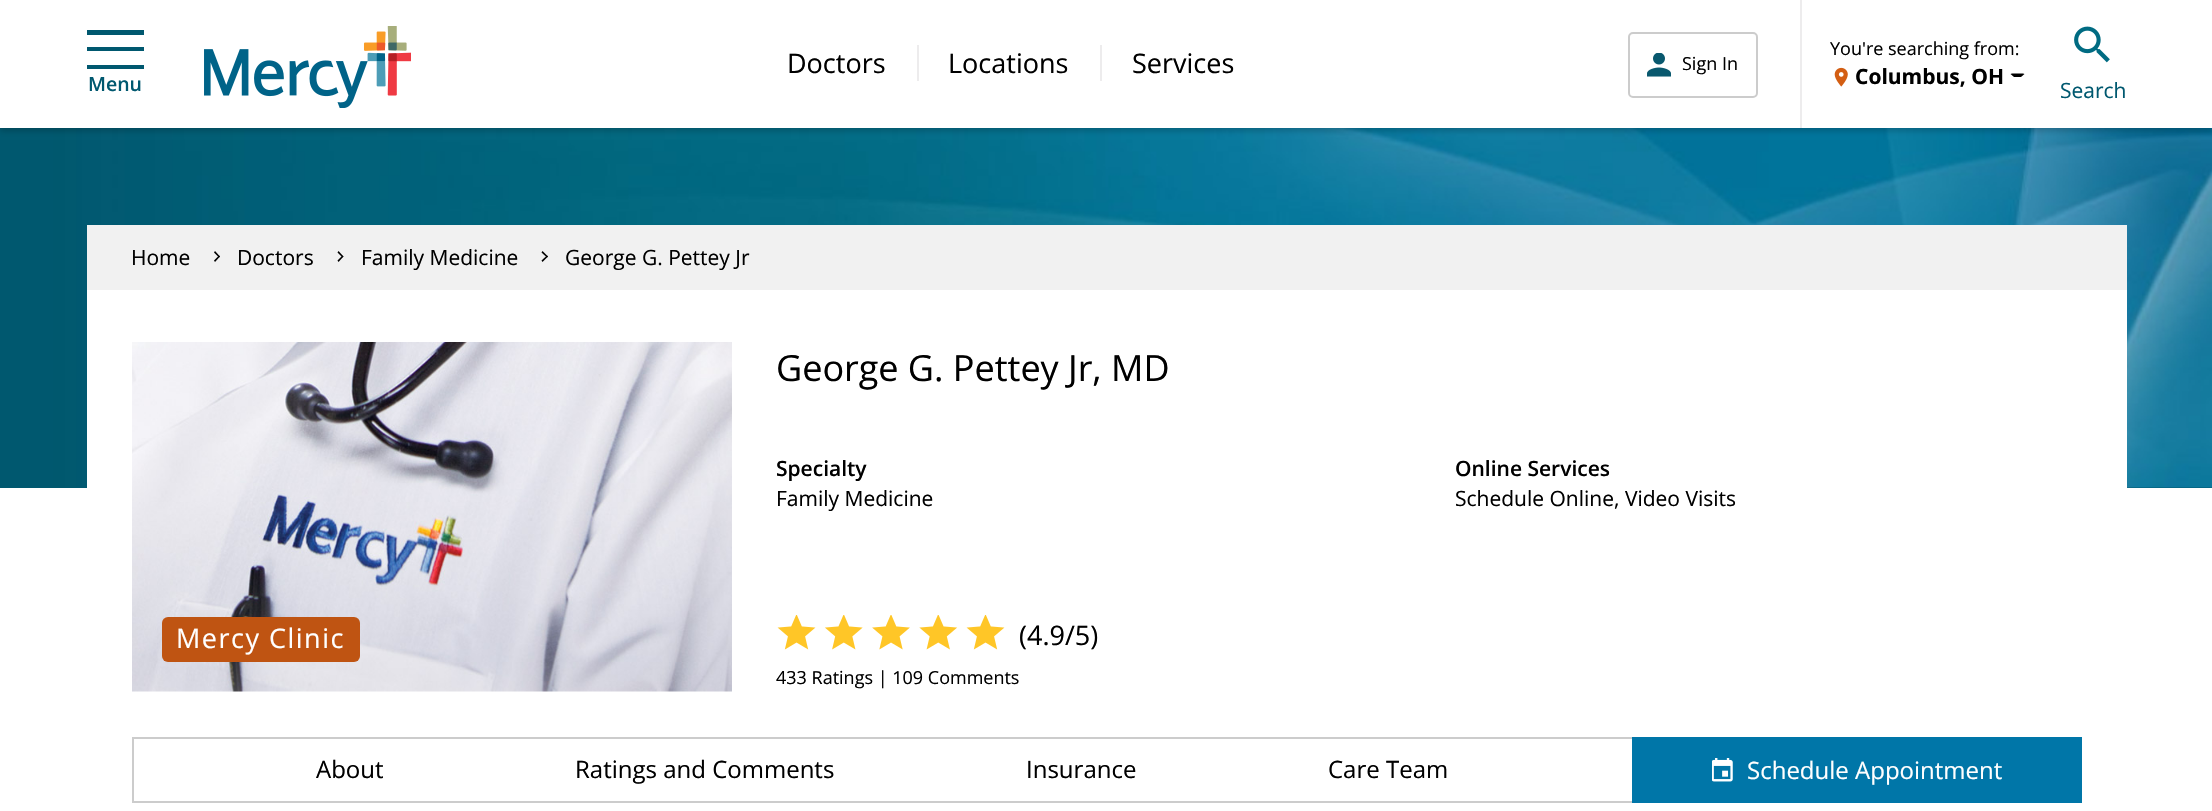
#include "include/core/SkBlurTypes.h"
#include "include/core/SkCanvas.h"
#include "include/core/SkData.h"
#include "include/core/SkFont.h"
#include "include/core/SkFontMgr.h"
#include "include/core/SkImage.h"
#include "include/core/SkMaskFilter.h"
#include "include/core/SkPaint.h"
#include "include/core/SkPathBuilder.h"
#include "include/core/SkTextBlob.h"
#include "include/effects/SkDashPathEffect.h"
#include "include/effects/SkGradientShader.h"
#include "include/utils/SkParsePath.h"

extern sk_sp<SkFontMgr> fontMgr;

static SkFont font(const char* family, int weight, float size, bool italic = false) {
    SkFontStyle style(weight, SkFontStyle::kNormal_Width,
        italic ? SkFontStyle::kItalic_Slant : SkFontStyle::kUpright_Slant);
    SkFont result(fontMgr->matchFamilyStyle(family, style), size);
    result.setSubpixel(true);
    return result;
}

static void drawLabel(SkCanvas* canvas, const char* s, float x, float y, const SkFont& font, SkColor color) {
    SkPaint ink(SkColor4f::FromColor(color));
    ink.setAntiAlias(true);
    canvas->drawString(s, x, y, font, ink);
}

static void drawTracked(SkCanvas* canvas, const char* s, float x, float y, const SkFont& font, const SkPaint& ink, float letter, float word) {
    std::vector<SkGlyphID> glyphs(font.countText(s, strlen(s), SkTextEncoding::kUTF8));
    std::vector<float> xs(glyphs.size());
    font.textToGlyphs(s, strlen(s), SkTextEncoding::kUTF8, glyphs);
    font.getXPos(glyphs, xs, x);
    float extra = 0;
    for (size_t i = 0; i < glyphs.size(); i++) {
        xs[i] += extra;
        extra += letter + word * (glyphs[i] == font.unicharToGlyph(' '));
    }
    canvas->drawTextBlob(SkTextBlob::MakeFromPosHGlyphs(glyphs, xs, y, font), 0, 0, ink);
}

static void fillRect(SkCanvas* canvas, float x, float y, float w, float h, SkColor color) {
    SkPaint ink(SkColor4f::FromColor(color));
    ink.setAntiAlias(true);
    canvas->drawRect(SkRect::MakeXYWH(x, y, w, h), ink);
}

static void fillRRect(SkCanvas* canvas, float x, float y, float w, float h, float radius, SkColor color) {
    SkPaint ink(SkColor4f::FromColor(color));
    ink.setAntiAlias(true);
    canvas->drawRoundRect(SkRect::MakeXYWH(x, y, w, h), radius, radius, ink);
}

static void drawPhoto(SkCanvas* canvas, const char* path, float x, float y, float w, float h) {
    auto image = SkImages::DeferredFromEncodedData(SkData::MakeFromFileName(path));
    canvas->drawImageRect(image, SkRect::MakeXYWH(x, y, w, h), SkSamplingOptions());
}

static SkPath parsePath(const char* data, bool evenOdd = false) {
    SkPath result = *SkParsePath::FromSVGString(data);
    if (evenOdd) result.setFillType(SkPathFillType::kEvenOdd);
    return result;
}

void draw(SkCanvas* canvas) {
    SkPaint paint;
    paint.setAntiAlias(true);
    canvas->clear(0xFFFFFFFF);
    fillRect(canvas, 0, 128, 2212, 360, 0xFF00586F);
    drawPhoto(canvas, "assets/img5.png", 52, 128, 2160, 360);
    paint.setColor(0x33030303);
    paint.setMaskFilter(SkMaskFilter::MakeBlur(kNormal_SkBlurStyle, 3));
    canvas->drawRect(SkRect::MakeXYWH(0, 3, 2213, 128), paint);
    paint.setMaskFilter(nullptr);
    fillRect(canvas, 0, 0, 2212, 128, 0xFFFFFFFF);
    drawPhoto(canvas, "assets/img1.png", 204, 26, 207, 82);
    SkFont font1 = font("Open Sans", 400, 27);
    drawLabel(canvas, "Doctors", 787, 73, font1, 0xFF000000);
    fillRect(canvas, 917, 45, 2, 36, 0xFFEDECED);
    drawLabel(canvas, "Locations", 948, 73, font1, 0xFF000000);
    fillRect(canvas, 1100, 45, 2, 36, 0xFFEDECED);
    drawLabel(canvas, "Services", 1132, 73, font1, 0xFF000000);
    paint.setStroke(true);
    paint.setStrokeWidth(2);
    paint.setColor(0xFFCCCCCC);
    canvas->drawRoundRect(SkRect::MakeXYWH(1629, 33, 128, 64), 4, 4, paint);
    drawPhoto(canvas, "assets/img2.png", 1647, 53, 24, 24);
    SkFont font2 = font("Open Sans", 400, 18);
    drawLabel(canvas, "Sign In", 1682, 70, font2, 0xFF000000);
    fillRect(canvas, 1800, 0, 2, 128, 0xFFEDECED);
    drawLabel(canvas, "You're searching from:", 1830, 55, font2, 0xFF000000);
    drawPhoto(canvas, "assets/img3.png", 1834, 67, 14, 20);
    SkFont font3 = font("Open Sans", 700, 21);
    drawLabel(canvas, "Columbus, OH", 1855, 84, font3, 0xFF000000);
    paint.setStroke(false);
    paint.setColor(0xFF000000);
    canvas->drawPath(parsePath("M2012 73.5L2010.5 74L2014 77H2021L2024.5 74L2023 73.5Z"), paint);
    drawPhoto(canvas, "assets/img4.png", 2074, 26, 36, 37);
    SkFont font4 = font("Open Sans", 400, 21);
    drawLabel(canvas, "Search", 2060, 98, font4, 0xFF00586F);
    paint.setColor(0xFF00586F);
    canvas->drawPath(parsePath("M144 30V35H87V30ZM144 47V51H87V47ZM144 65V69H87V65Z"), paint);
    SkFont font5 = font("Open Sans", 600, 19.5f);
    drawLabel(canvas, "Menu", 88, 91, font5, 0xFF00586F);
    fillRect(canvas, 87, 290, 2040, 198, 0xFFFFFFFF);
    fillRect(canvas, 87, 225, 2040, 65, 0xFFF1F1F1);
    drawLabel(canvas, "Home", 131, 265, font4, 0xFF000000);
    paint.setColor(0xFF000000);
    canvas->drawPath(parsePath("M215 251L220 256.5L219 257.5L214 252.5Z"), paint);
    canvas->drawPath(parsePath("M219 255.5L220 256.5L215 262L214 260.5Z"), paint);
    drawLabel(canvas, "Doctors", 237, 265, font4, 0xFF000000);
    canvas->drawPath(parsePath("M338.5 251L343.5 256.5L342.5 257.5L337.5 252.5Z"), paint);
    canvas->drawPath(parsePath("M342.5 255.5L343.5 256.5L338.5 262L337.5 260.5Z"), paint);
    drawLabel(canvas, "Family Medicine", 361, 265, font4, 0xFF000000);
    canvas->drawPath(parsePath("M542.5 251L548 256.5L547 257.5L541.5 252.5Z"), paint);
    canvas->drawPath(parsePath("M547 255.5L548 256.5L542.5 262L541.5 260.5Z"), paint);
    drawLabel(canvas, "George G. Pettey Jr", 565, 265, font4, 0xFF000000);
    drawPhoto(canvas, "assets/img6.png", 132, 342, 600, 350);
    fillRRect(canvas, 162, 617, 198, 45, 6, 0xFFBF5412);
    paint.setColor(0xFFFFFFFF);
    drawTracked(canvas, "Mercy Clinic", 176, 648, font1, paint, 1.5f, 0);
    SkFont font6 = font("Open Sans", 400, 36);
    drawLabel(canvas, "George G. Pettey Jr, MD", 776, 381, font6, 0xFF000000);
    SkFont font7 = font("Open Sans", 600, 21);
    drawLabel(canvas, "Specialty", 776, 476, font7, 0xFF000000);
    drawLabel(canvas, "Family Medicine", 776, 506, font4, 0xFF000000);
    drawLabel(canvas, "Online Services", 1455, 476, font7, 0xFF000000);
    drawLabel(canvas, "Schedule Online, Video Visits", 1455, 506, font4, 0xFF000000);
    drawPhoto(canvas, "assets/img7.png", 777, 615, 228, 35);
    drawLabel(canvas, "(4.9/5)", 1019, 645, font1, 0xFF000000);
    drawLabel(canvas, "433 Ratings | 109 Comments", 776, 684, font2, 0xFF000000);
    fillRect(canvas, 132, 737, 1500, 2, 0xFFCCCCCC);
    fillRect(canvas, 132, 801, 1500, 2, 0xFFCCCCCC);
    fillRect(canvas, 132, 737, 2, 66, 0xFFCCCCCC);
    SkFont font8 = font("Open Sans", 400, 24);
    drawLabel(canvas, "About", 316, 778, font8, 0xFF000000);
    drawLabel(canvas, "Ratings and Comments", 575, 778, font8, 0xFF000000);
    drawLabel(canvas, "Insurance", 1026, 778, font8, 0xFF000000);
    drawLabel(canvas, "Care Team", 1328, 778, font8, 0xFF000000);
    fillRect(canvas, 1632, 737, 450, 66, 0xFF0076A8);
    drawPhoto(canvas, "assets/img8.png", 1712, 758, 21, 24);
    drawLabel(canvas, "Schedule Appointment", 1747, 779, font8, 0xFFFFFFFF);
}
